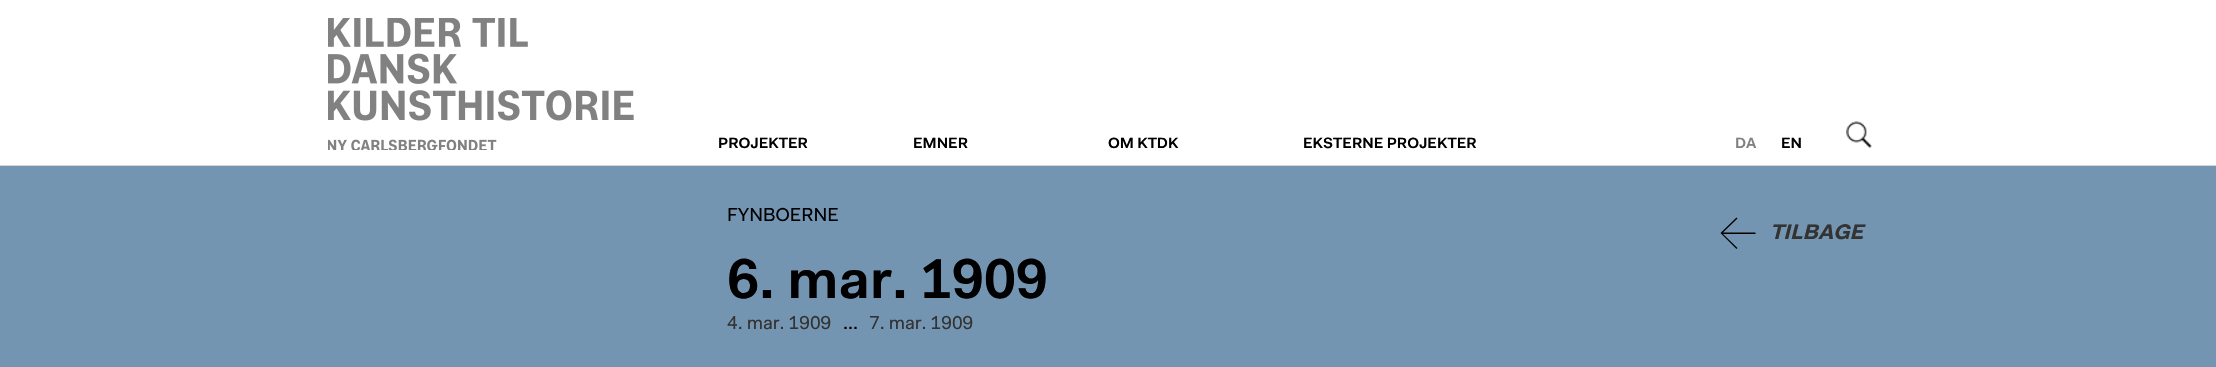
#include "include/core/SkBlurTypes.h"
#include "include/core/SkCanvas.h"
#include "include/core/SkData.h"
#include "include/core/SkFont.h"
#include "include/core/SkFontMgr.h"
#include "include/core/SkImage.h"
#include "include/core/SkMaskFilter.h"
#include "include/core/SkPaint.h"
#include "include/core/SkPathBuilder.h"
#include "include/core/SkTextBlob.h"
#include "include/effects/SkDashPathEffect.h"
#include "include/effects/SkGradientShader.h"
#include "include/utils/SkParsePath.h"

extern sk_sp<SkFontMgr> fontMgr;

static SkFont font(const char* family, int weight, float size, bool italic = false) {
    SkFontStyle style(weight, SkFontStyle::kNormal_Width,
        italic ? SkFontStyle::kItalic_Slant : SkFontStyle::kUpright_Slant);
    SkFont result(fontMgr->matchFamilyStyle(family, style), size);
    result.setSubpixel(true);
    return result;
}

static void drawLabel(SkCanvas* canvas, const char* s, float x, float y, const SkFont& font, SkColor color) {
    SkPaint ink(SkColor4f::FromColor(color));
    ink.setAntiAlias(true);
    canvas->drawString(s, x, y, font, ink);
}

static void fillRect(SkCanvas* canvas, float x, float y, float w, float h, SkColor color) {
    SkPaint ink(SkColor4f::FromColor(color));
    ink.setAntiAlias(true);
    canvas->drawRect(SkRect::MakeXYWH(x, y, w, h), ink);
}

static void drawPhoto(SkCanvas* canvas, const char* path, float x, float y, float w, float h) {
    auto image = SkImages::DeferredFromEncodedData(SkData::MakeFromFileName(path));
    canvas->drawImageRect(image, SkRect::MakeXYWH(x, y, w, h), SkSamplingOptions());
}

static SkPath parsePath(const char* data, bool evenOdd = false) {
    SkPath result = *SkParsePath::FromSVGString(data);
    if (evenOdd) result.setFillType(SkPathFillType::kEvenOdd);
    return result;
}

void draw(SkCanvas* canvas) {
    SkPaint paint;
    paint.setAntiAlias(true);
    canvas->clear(0xFFFFFFFF);
    fillRect(canvas, 0, 165, 2216, 1, 0xFFD5D5D5);
    drawPhoto(canvas, "assets/img1.png", 328, 18, 306, 132);
    SkFont font1 = font("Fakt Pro", 600, 15);
    drawLabel(canvas, "PROJEKTER", 718, 148, font1, 0xFF000000);
    drawLabel(canvas, "EMNER", 913, 148, font1, 0xFF000000);
    drawLabel(canvas, "OM KTDK", 1108, 148, font1, 0xFF000000);
    drawLabel(canvas, "EKSTERNE PROJEKTER", 1303, 148, font1, 0xFF000000);
    drawLabel(canvas, "DA", 1735, 148, font1, 0xFF818181);
    drawLabel(canvas, "EN", 1781, 148, font1, 0xFF000000);
    drawPhoto(canvas, "assets/img2.png", 1846, 121, 26, 27);
    fillRect(canvas, 0, 166, 2216, 201, 0xFF7495B1);
    SkFont font2 = font("Fakt Pro", 400, 18.75f);
    drawLabel(canvas, "FYNBOERNE", 727, 221, font2, 0xFF000000);
    SkFont font3 = font("Fakt Pro", 600, 56.25f);
    drawLabel(canvas, "6. mar. 1909", 727, 298, font3, 0xFF000000);
    paint.setColor(0xFF000000);
    canvas->drawPath(parsePath("M1723 234L1737.5 248L1736.5 249L1720.5 233L1736.5 217.5L1737.5 218.5L1723 232.5H1755.5V234Z"), paint);
    SkFont font4 = font("Fakt Pro", 700, 21.25f, true);
    drawLabel(canvas, "TILBAGE", 1770, 239, font4, 0xFF333333);
    drawLabel(canvas, "4. mar. 1909", 727, 329, font2, 0xFF333333);
    drawLabel(canvas, "...", 843, 329, font2, 0xFF000000);
    drawLabel(canvas, "7. mar. 1909", 869, 329, font2, 0xFF333333);
}
